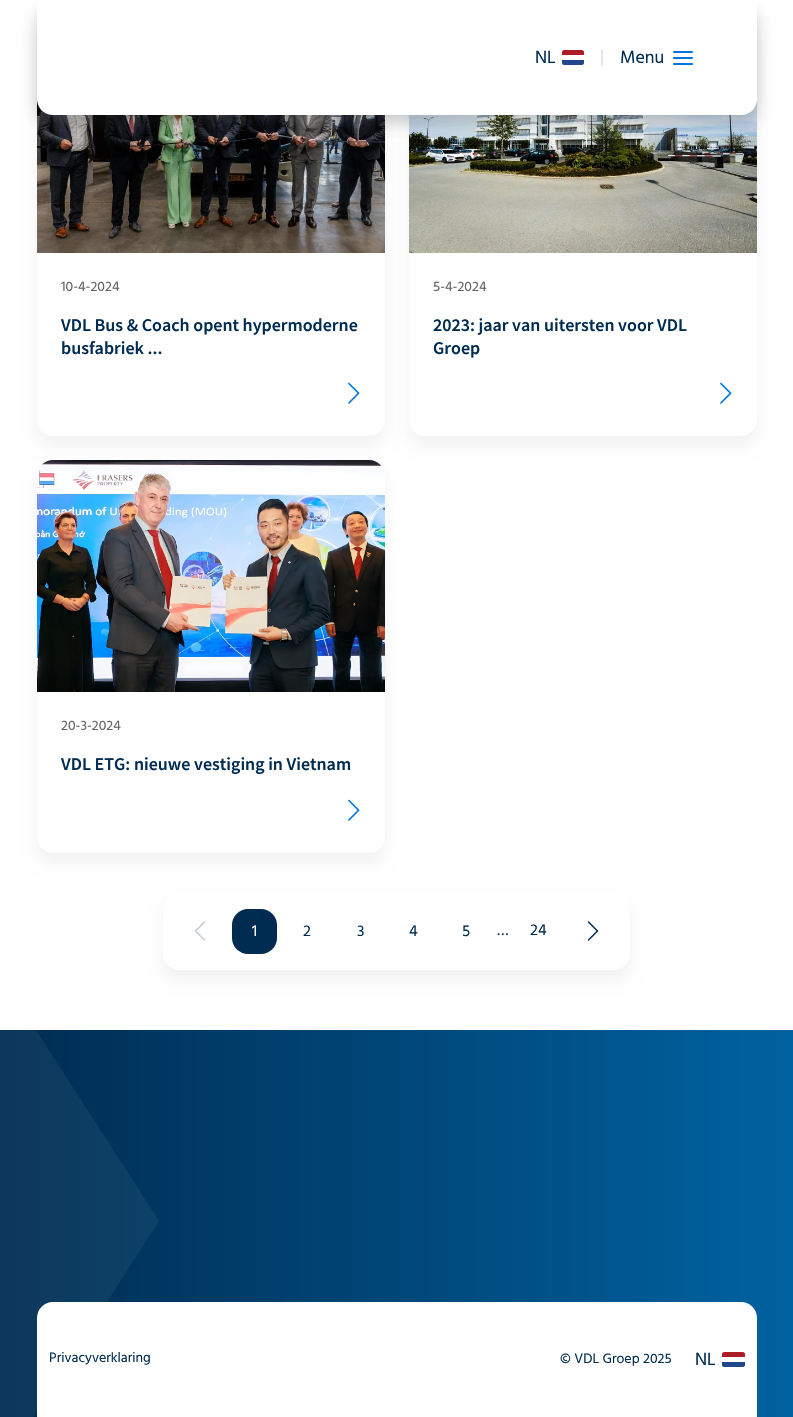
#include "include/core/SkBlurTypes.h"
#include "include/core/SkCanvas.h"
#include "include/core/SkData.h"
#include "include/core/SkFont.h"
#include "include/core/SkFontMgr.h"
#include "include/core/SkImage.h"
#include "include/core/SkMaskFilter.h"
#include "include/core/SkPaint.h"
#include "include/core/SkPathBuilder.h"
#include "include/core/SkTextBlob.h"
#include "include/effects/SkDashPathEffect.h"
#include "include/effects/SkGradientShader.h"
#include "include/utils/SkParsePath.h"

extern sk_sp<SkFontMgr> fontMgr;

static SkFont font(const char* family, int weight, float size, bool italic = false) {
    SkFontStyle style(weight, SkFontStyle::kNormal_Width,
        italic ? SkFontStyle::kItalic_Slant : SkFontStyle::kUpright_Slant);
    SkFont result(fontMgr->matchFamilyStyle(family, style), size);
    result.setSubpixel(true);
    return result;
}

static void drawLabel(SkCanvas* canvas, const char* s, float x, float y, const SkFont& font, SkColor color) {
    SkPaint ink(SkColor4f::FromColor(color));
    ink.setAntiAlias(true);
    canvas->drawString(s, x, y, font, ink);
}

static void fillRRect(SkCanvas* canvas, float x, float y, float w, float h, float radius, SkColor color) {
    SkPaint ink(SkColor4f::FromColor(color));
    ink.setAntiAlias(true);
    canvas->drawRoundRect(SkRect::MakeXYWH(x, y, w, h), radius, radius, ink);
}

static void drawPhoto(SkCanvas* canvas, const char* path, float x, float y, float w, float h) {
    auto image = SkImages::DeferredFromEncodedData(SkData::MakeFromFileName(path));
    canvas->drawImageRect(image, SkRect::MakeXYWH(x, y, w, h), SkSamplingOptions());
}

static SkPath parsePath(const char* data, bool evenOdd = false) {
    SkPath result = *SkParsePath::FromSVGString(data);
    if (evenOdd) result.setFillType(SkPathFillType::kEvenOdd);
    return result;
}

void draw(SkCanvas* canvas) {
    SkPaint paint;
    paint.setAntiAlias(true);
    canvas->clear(0xFFFFFFFF);
    paint.setColor(0x0D000000);
    paint.setMaskFilter(SkMaskFilter::MakeBlur(kNormal_SkBlurStyle, 7.5f));
    canvas->drawRoundRect(SkRect::MakeXYWH(37, 31, 348, 415), 16, 16, paint);
    paint.setMaskFilter(nullptr);
    fillRRect(canvas, 37, 21, 348, 415, 16, 0xFFFFFFFF);
    drawPhoto(canvas, "assets/img1.png", 37, 99, 348, 154);
    paint.setMaskFilter(SkMaskFilter::MakeBlur(kNormal_SkBlurStyle, 7.5f));
    canvas->drawRoundRect(SkRect::MakeXYWH(409, 31, 348, 415), 16, 16, paint);
    paint.setMaskFilter(nullptr);
    fillRRect(canvas, 409, 21, 348, 415, 16, 0xFFFFFFFF);
    drawPhoto(canvas, "assets/img3.png", 409, 99, 348, 154);
    paint.setColor(0x402F2F2F);
    paint.setMaskFilter(SkMaskFilter::MakeBlur(kNormal_SkBlurStyle, 8));
    canvas->drawRoundRect(SkRect::MakeXYWH(37, 8, 720, 115), 16, 16, paint);
    paint.setMaskFilter(nullptr);
    paint.setColor(0xFFFFFFFF);
    canvas->drawPath(parsePath("M37 0H757V99C757 108 750 115 741 115H53C44 115 37 108 37 99Z"), paint);
    SkFont font1 = font("Hind", 400, 18);
    drawLabel(canvas, "NL", 535, 63, font1, 0xFF002C51);
    paint.setColor(0xFF21468B);
    canvas->drawPath(parsePath("M562 60H584V63C584 64 583 65 582 65H564C563 65 562 64 562 63Z"), paint);
    paint.setColor(0xFFAE1C28);
    canvas->drawPath(parsePath("M564 50H582C583 50 584 51 584 52V55H562V52C562 51 563 50 564 50Z"), paint);
    drawLabel(canvas, "|", 600, 62, font1, 0xFFE0E0E0);
    drawLabel(canvas, "Menu", 620, 63, font1, 0xFF002C51);
    fillRRect(canvas, 673, 51, 20, 2, 1, 0xFF0075E0);
    fillRRect(canvas, 673, 57, 20, 2, 1, 0xFF0075E0);
    fillRRect(canvas, 673, 63, 20, 2, 1, 0xFF0075E0);
    SkFont font2 = font("Hind", 400, 14);
    drawLabel(canvas, "10-4-2024", 61, 291, font2, 0xFF616161);
    SkFont font3 = font("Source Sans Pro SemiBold", 600, 18);
    drawLabel(canvas, "VDL Bus & Coach opent hypermoderne", 61, 331, font3, 0xFF002C51);
    drawLabel(canvas, "busfabriek ...", 61, 354, font3, 0xFF002C51);
    drawPhoto(canvas, "assets/img2.png", 348, 382, 12, 22);
    drawLabel(canvas, "5-4-2024", 433, 291, font2, 0xFF616161);
    drawLabel(canvas, "2023: jaar van uitersten voor VDL", 433, 331, font3, 0xFF002C51);
    drawLabel(canvas, "Groep", 433, 354, font3, 0xFF002C51);
    drawPhoto(canvas, "assets/img2.png", 720, 382, 12, 22);
    paint.setColor(0x0D000000);
    paint.setMaskFilter(SkMaskFilter::MakeBlur(kNormal_SkBlurStyle, 7.5f));
    canvas->drawRoundRect(SkRect::MakeXYWH(37, 470, 348, 393), 16, 16, paint);
    paint.setMaskFilter(nullptr);
    fillRRect(canvas, 37, 460, 348, 393, 16, 0xFFFFFFFF);
    drawPhoto(canvas, "assets/img4.png", 37, 460, 348, 232);
    drawLabel(canvas, "20-3-2024", 61, 730, font2, 0xFF616161);
    drawLabel(canvas, "VDL ETG: nieuwe vestiging in Vietnam", 61, 770, font3, 0xFF002C51);
    drawPhoto(canvas, "assets/img2.png", 348, 799, 12, 22);
    paint.setMaskFilter(SkMaskFilter::MakeBlur(kNormal_SkBlurStyle, 7.5f));
    canvas->drawRoundRect(SkRect::MakeXYWH(163, 903, 467, 77), 16, 16, paint);
    paint.setMaskFilter(nullptr);
    fillRRect(canvas, 163, 893, 467, 77, 16, 0xFFFFFFFF);
    drawPhoto(canvas, "assets/img5.png", 195, 921, 10, 20);
    fillRRect(canvas, 232, 909, 45, 45, 16, 0xFF002C51);
    SkFont font4 = font("Hind", 400, 16);
    drawLabel(canvas, "1", 252, 936, font4, 0xFFFFFFFF);
    drawLabel(canvas, "2", 303, 936, font4, 0xFF002C51);
    drawLabel(canvas, "3", 357, 936, font4, 0xFF002C51);
    drawLabel(canvas, "4", 409, 936, font4, 0xFF002C51);
    drawLabel(canvas, "5", 462, 936, font4, 0xFF002C51);
    drawLabel(canvas, "…", 497, 935, font4, 0xFF002C51);
    drawLabel(canvas, "24", 530, 935, font4, 0xFF002C51);
    drawPhoto(canvas, "assets/img6.png", 587, 921, 12, 20);
    {
        const SkColor colors[] = {0xFF0064A3, 0xFF002C51};
        const float stops[] = {0, 1};
        const SkPoint ends[] = {{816, 1224}, {0, 1224}};
        paint.setShader(SkGradientShader::MakeLinear(ends, colors, stops, 2, SkTileMode::kClamp));
        paint.setAlpha(255);
    }
    canvas->drawRect(SkRect::MakeXYWH(0, 1030, 793, 387), paint);
    paint.setShader(nullptr);
    paint.setColor(0xFFFFFFFF);
    canvas->drawPath(parsePath("M53 1302H741C750 1302 757 1309 757 1318V1417H37V1318C37 1309 44 1302 53 1302Z"), paint);
    paint.setColor(0x0DFFFFFF);
    canvas->drawPath(parsePath("M-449 739L11 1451L159 1221L-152 739Z"), paint);
    drawLabel(canvas, "Privacyverklaring", 49, 1362, font2, 0xFF002C51);
    drawLabel(canvas, "© VDL Groep 2025", 560, 1363, font2, 0xFF002C51);
    drawLabel(canvas, "NL", 695, 1365, font1, 0xFF002C51);
    paint.setColor(0xFF21468B);
    canvas->drawPath(parsePath("M722 1362H745V1365C745 1366 744 1367 743 1367H724C723 1367 722 1366 722 1365Z"), paint);
    paint.setColor(0xFFAE1C28);
    canvas->drawPath(parsePath("M724 1352H743C744 1352 745 1353 745 1354V1357H722V1354C722 1353 723 1352 724 1352Z"), paint);
}
